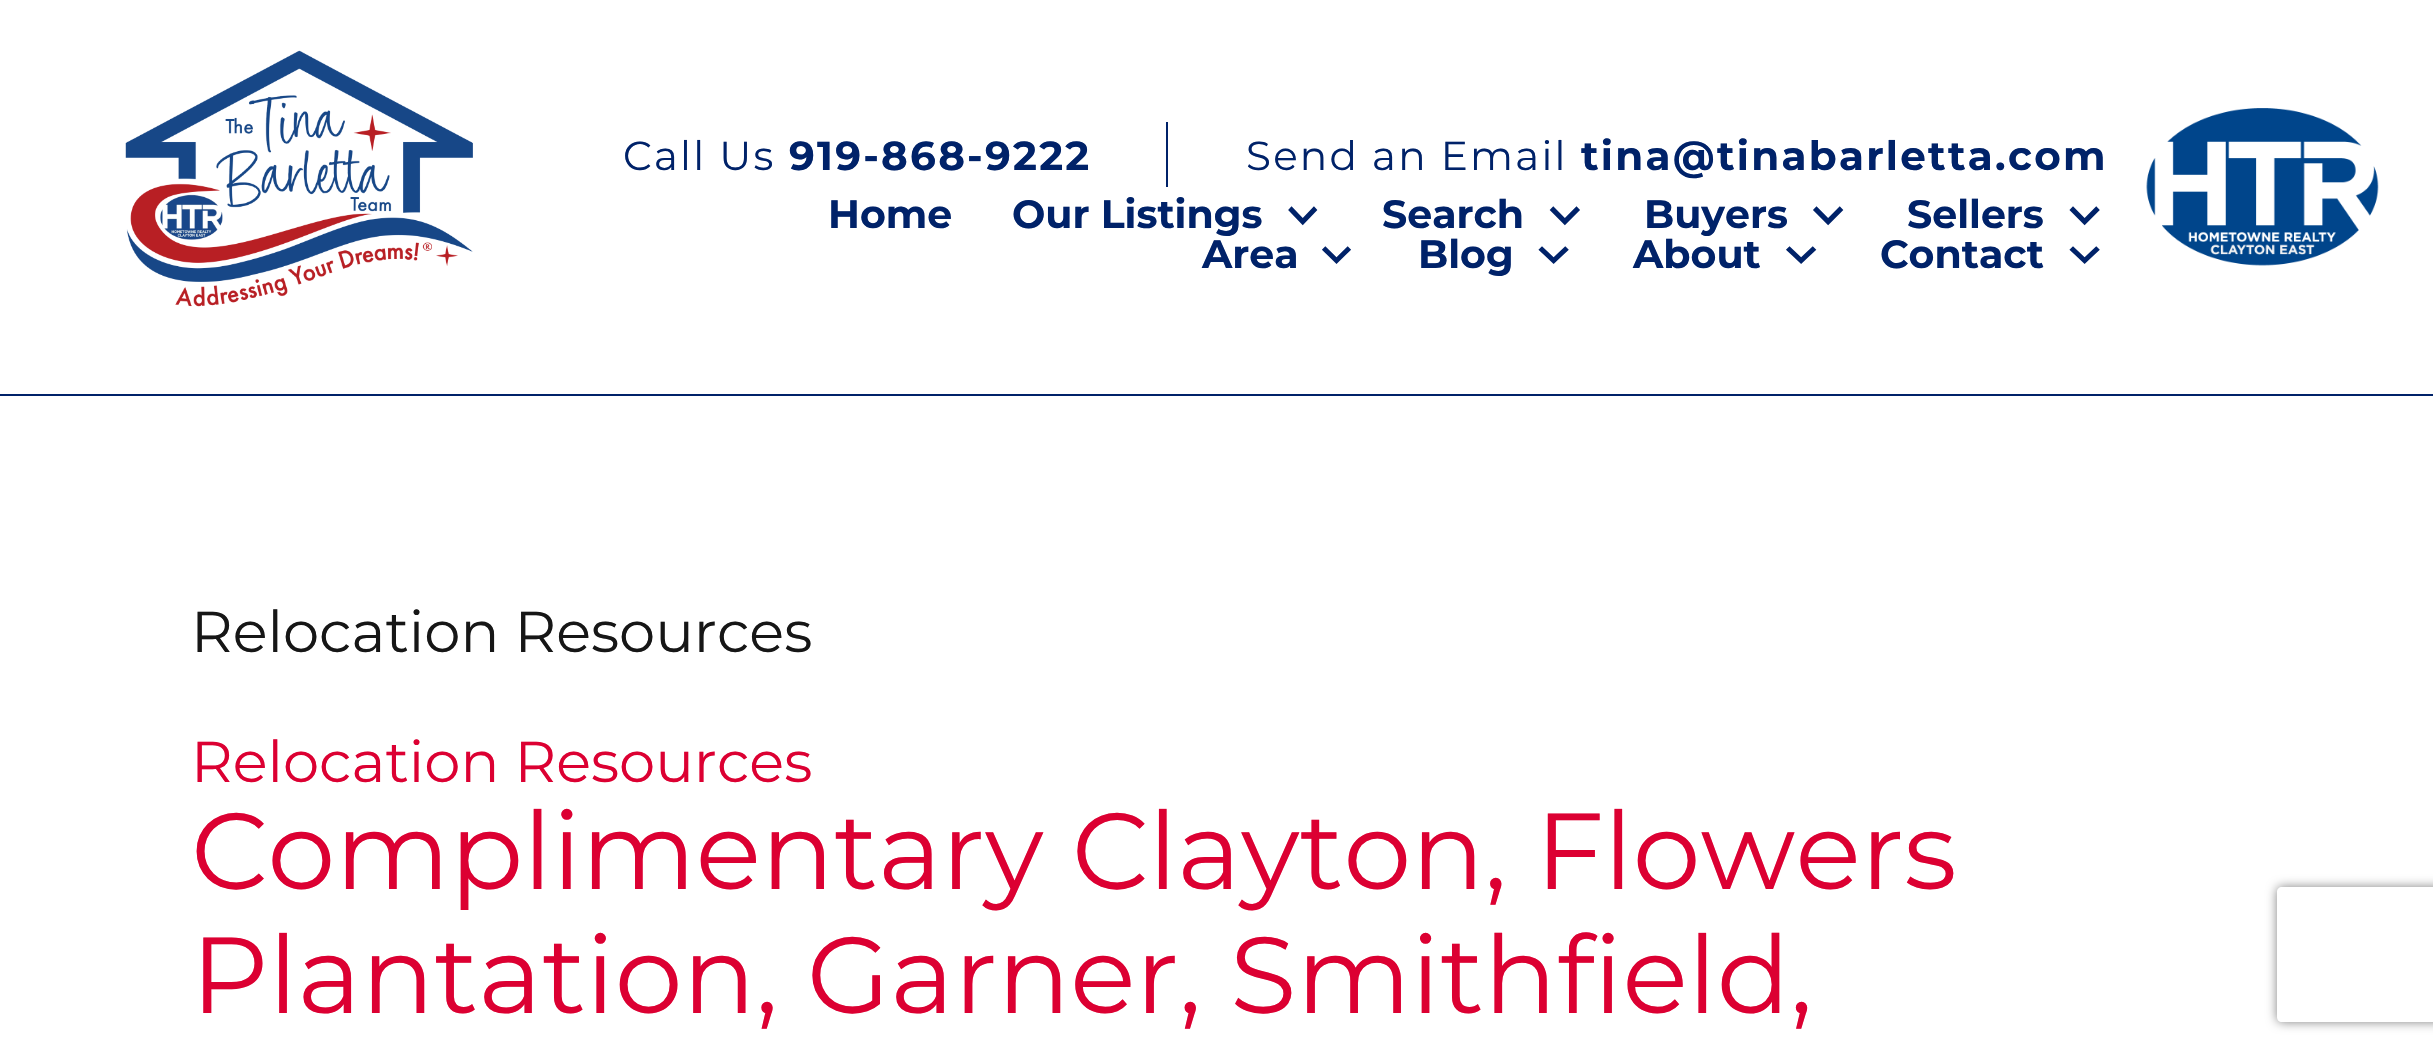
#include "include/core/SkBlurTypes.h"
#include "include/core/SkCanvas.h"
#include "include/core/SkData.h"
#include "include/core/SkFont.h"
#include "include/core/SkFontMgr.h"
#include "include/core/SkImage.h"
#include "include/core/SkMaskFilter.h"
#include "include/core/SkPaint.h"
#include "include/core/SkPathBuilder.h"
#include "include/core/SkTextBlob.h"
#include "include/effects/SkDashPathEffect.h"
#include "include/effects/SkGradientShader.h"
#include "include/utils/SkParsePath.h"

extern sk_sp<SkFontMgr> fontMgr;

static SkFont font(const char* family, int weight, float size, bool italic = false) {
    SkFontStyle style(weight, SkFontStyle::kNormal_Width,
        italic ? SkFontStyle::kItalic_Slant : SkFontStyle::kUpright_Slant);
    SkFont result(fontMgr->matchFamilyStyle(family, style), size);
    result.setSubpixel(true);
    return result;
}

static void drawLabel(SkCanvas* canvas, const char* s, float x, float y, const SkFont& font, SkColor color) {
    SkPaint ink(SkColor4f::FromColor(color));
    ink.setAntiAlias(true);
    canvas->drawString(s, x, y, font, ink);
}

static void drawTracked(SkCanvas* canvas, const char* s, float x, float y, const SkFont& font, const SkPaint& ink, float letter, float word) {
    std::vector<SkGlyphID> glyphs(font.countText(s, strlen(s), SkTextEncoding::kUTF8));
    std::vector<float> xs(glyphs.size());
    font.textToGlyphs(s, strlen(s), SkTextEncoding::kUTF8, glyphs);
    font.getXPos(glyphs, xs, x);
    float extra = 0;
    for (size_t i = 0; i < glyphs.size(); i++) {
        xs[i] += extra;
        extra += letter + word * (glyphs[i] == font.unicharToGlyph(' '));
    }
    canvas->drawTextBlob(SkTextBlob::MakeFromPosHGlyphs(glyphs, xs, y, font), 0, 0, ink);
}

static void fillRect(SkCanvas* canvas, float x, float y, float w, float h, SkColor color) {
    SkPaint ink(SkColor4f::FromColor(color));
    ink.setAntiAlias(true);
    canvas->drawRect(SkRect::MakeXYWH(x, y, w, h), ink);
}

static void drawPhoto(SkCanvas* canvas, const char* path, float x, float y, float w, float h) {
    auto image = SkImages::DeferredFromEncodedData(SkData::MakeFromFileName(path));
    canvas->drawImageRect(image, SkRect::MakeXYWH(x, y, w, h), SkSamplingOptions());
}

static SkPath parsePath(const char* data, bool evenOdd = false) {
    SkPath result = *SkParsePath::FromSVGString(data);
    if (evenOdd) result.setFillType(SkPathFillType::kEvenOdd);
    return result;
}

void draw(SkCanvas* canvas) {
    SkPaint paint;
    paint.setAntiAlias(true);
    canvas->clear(0xFFFFFFFF);
    fillRect(canvas, 0, 394, 2433, 2, 0xFF002269);
    drawPhoto(canvas, "assets/img1.png", 125, 50, 348, 257);
    fillRect(canvas, 1166, 122, 2, 65, 0xFF002269);
    SkFont font1 = font("Montserrat", 400, 40.5f);
    paint.setColor(0xFF002269);
    drawTracked(canvas, "Call Us", 623, 170, font1, paint, 2.25f, 0);
    SkFont font2 = font("Montserrat", 700, 40.5f);
    drawTracked(canvas, "919-868-9222", 789, 170, font2, paint, 2.25f, 0);
    drawTracked(canvas, "Send an Email", 1246, 170, font1, paint, 2.25f, 0);
    drawTracked(canvas, "tina@tinabarletta.com", 1581, 170, font2, paint, 2.25f, 0);
    SkFont font3 = font("Montserrat", 700, 39.5f);
    drawLabel(canvas, "Home", 828, 228, font3, 0xFF002269);
    drawLabel(canvas, "Our Listings", 1012, 228, font3, 0xFF002269);
    drawPhoto(canvas, "assets/img2.png", 1288, 206, 30, 20);
    drawLabel(canvas, "Search", 1382, 228, font3, 0xFF002269);
    drawPhoto(canvas, "assets/img3.png", 1549, 206, 31, 20);
    drawLabel(canvas, "Buyers", 1644, 228, font3, 0xFF002269);
    drawPhoto(canvas, "assets/img4.png", 1813, 206, 31, 20);
    drawLabel(canvas, "Sellers", 1907, 228, font3, 0xFF002269);
    drawPhoto(canvas, "assets/img5.png", 2069, 206, 31, 20);
    drawLabel(canvas, "Area", 1202, 268, font3, 0xFF002269);
    drawPhoto(canvas, "assets/img6.png", 1322, 246, 29, 18);
    drawLabel(canvas, "Blog", 1418, 268, font3, 0xFF002269);
    drawPhoto(canvas, "assets/img7.png", 1538, 246, 31, 18);
    drawLabel(canvas, "About", 1633, 268, font3, 0xFF002269);
    drawPhoto(canvas, "assets/img8.png", 1786, 246, 31, 18);
    drawLabel(canvas, "Contact", 1880, 268, font3, 0xFF002269);
    drawPhoto(canvas, "assets/img9.png", 2069, 246, 31, 18);
    drawPhoto(canvas, "assets/img10.png", 2146, 108, 233, 158);
    SkFont font4 = font("Montserrat", 400, 57.6f);
    drawLabel(canvas, "Relocation Resources", 191, 652, font4, 0xFF161616);
    drawLabel(canvas, "Relocation Resources", 191, 782, font4, 0xFFDC0032);
    SkFont font5 = font("Montserrat", 400, 108);
    drawLabel(canvas, "Complimentary Clayton, Flowers", 191, 889, font5, 0xFFDC0032);
    drawLabel(canvas, "Plantation, Garner, Smithfield,", 191, 1013, font5, 0xFFDC0032);
    canvas->save();
    canvas->clipPath(parsePath("M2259 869H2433V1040H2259ZM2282 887H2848C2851 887 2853 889 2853 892V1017C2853 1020 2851 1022 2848 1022H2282C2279 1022 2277 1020 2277 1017V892C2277 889 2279 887 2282 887Z", true), true);
    paint.setColor(0xFF808080);
    paint.setMaskFilter(SkMaskFilter::MakeBlur(kNormal_SkBlurStyle, 5.5f));
    canvas->drawRoundRect(SkRect::MakeXYWH(2277, 887, 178, 135), 5, 5, paint);
    paint.setMaskFilter(nullptr);
    canvas->restore();
}
